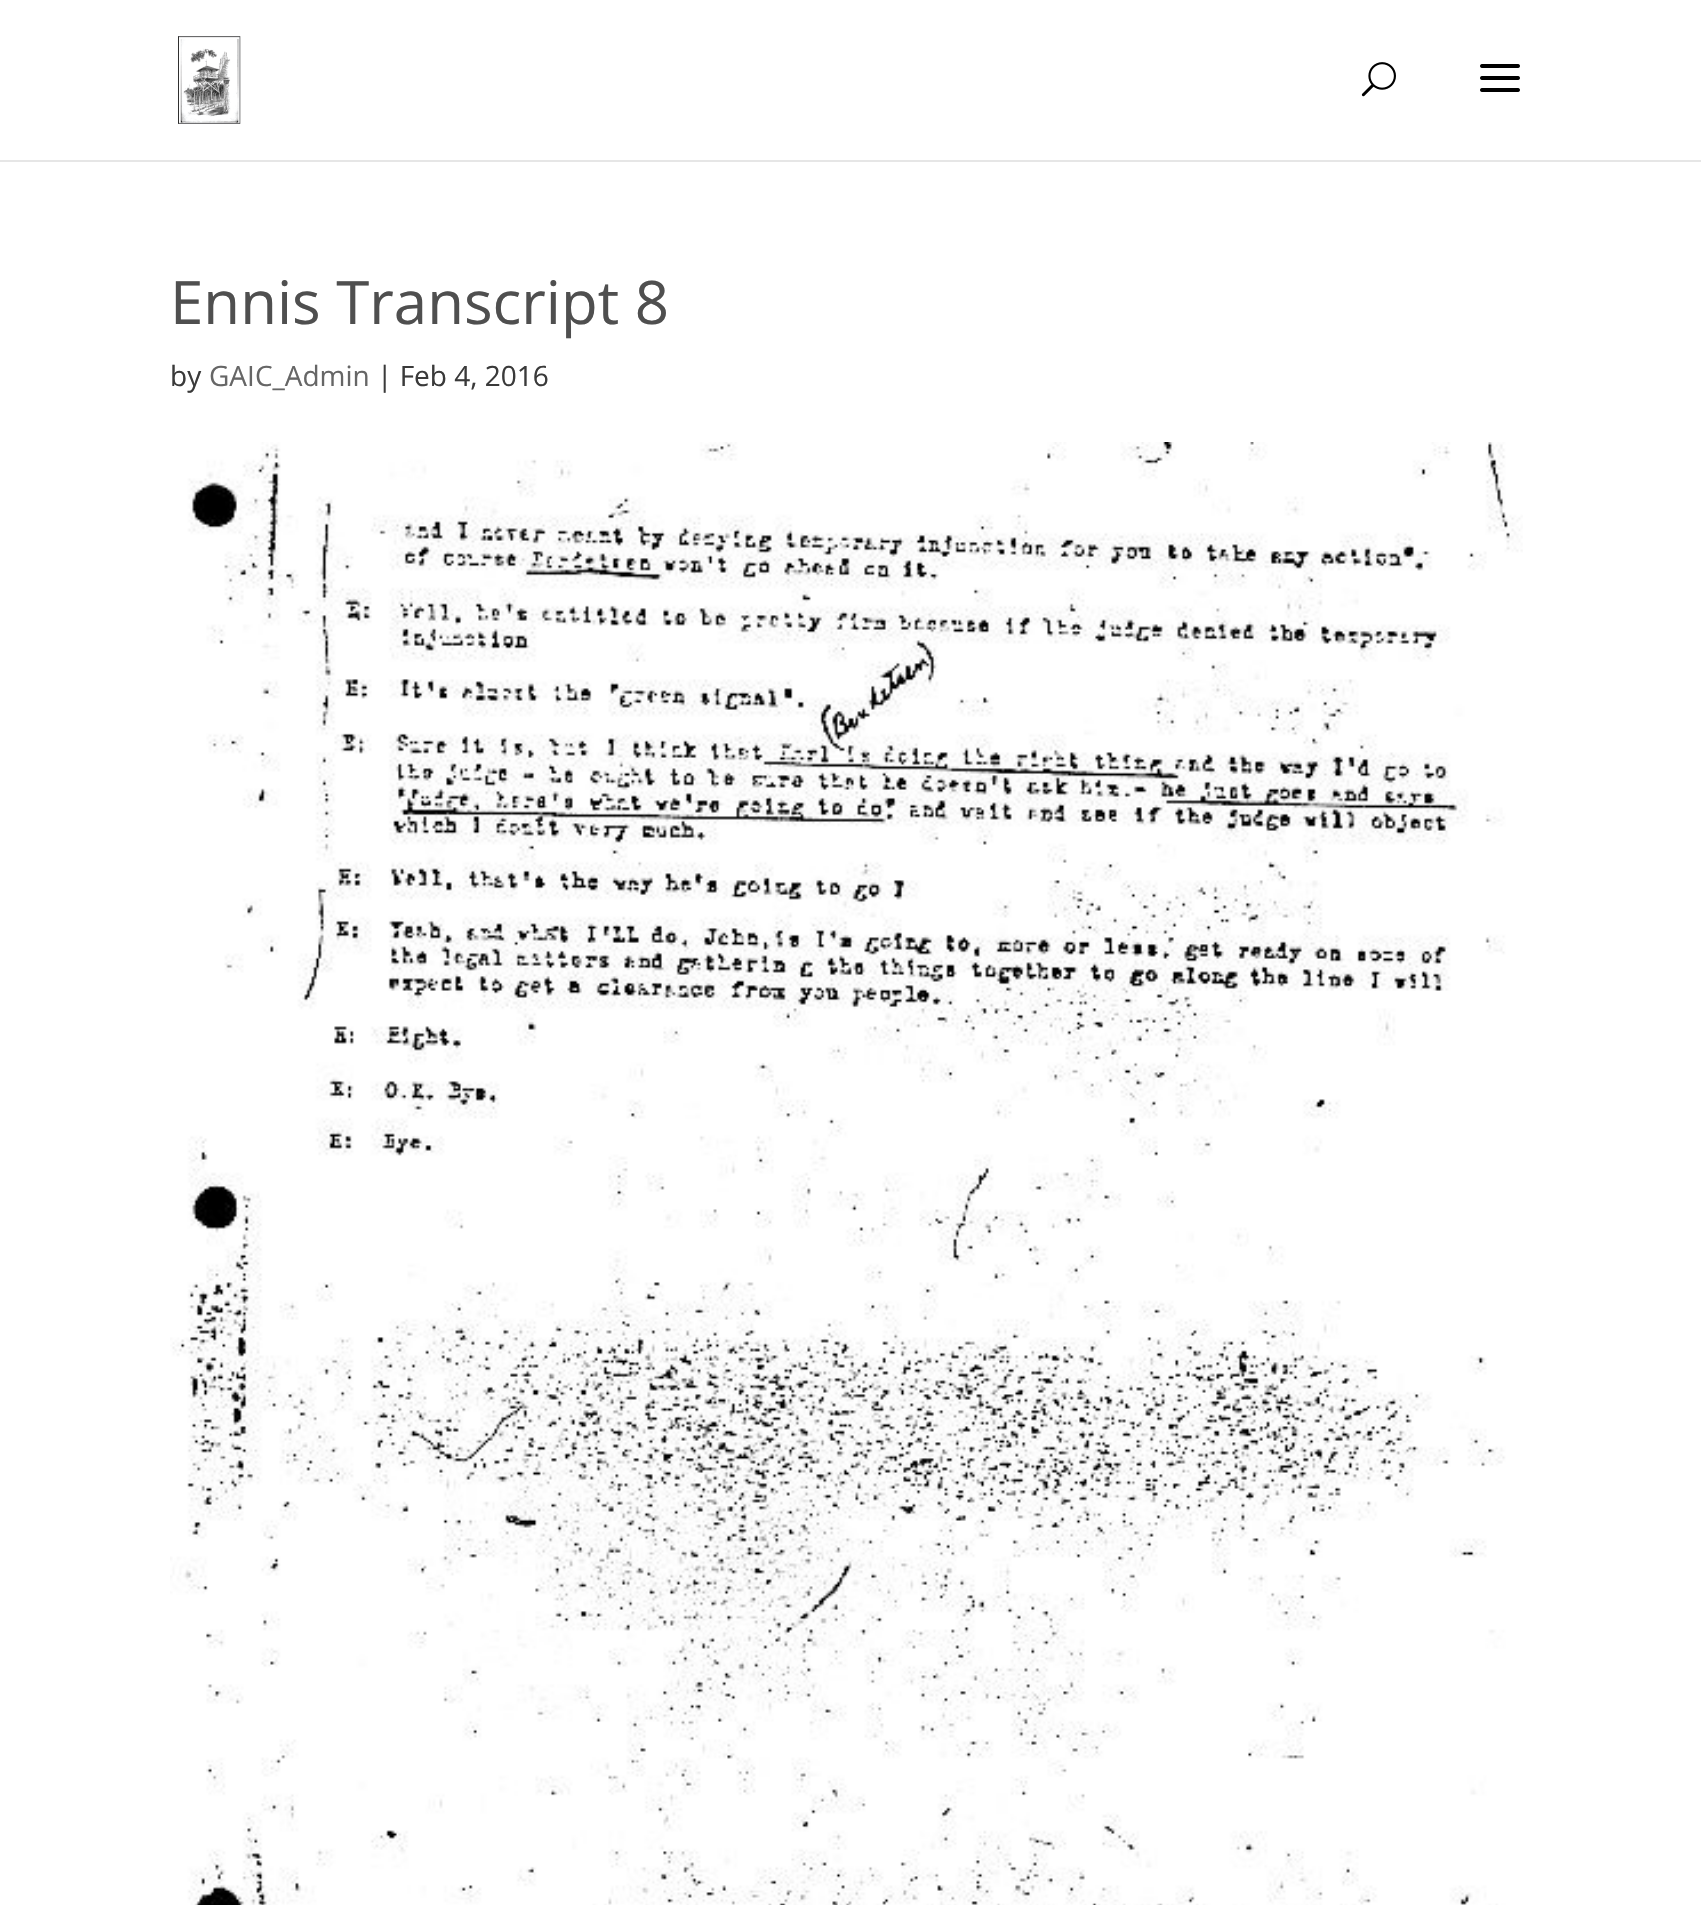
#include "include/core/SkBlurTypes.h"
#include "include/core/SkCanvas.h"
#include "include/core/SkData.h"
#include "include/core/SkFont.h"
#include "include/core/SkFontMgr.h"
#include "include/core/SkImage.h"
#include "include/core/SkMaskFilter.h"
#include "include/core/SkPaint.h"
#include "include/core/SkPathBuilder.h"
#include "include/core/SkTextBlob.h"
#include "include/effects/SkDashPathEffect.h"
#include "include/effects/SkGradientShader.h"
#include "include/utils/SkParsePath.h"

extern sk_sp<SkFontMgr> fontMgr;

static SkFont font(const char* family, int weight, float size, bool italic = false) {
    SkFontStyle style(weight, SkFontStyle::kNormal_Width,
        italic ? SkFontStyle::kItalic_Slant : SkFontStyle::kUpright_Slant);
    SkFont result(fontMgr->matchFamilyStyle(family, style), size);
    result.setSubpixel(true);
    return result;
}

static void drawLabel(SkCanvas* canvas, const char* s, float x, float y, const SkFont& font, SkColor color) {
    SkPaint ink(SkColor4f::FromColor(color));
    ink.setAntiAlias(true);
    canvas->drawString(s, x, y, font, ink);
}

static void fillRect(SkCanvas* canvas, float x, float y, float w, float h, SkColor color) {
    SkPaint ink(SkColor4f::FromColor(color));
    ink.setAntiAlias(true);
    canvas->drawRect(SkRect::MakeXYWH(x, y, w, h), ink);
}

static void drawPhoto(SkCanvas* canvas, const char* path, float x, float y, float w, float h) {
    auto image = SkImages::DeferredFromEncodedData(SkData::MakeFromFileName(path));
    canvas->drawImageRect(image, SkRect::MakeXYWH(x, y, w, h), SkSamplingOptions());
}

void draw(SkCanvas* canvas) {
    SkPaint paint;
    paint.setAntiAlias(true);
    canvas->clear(0xFFFFFFFF);
    fillRect(canvas, 0, 160, 1701, 2, 0xFFE6E6E6);
    drawPhoto(canvas, "assets/img1.png", 178, 36, 63, 88);
    drawPhoto(canvas, "assets/img2.png", 1361, 62, 35, 35);
    drawPhoto(canvas, "assets/img3.png", 1480, 64, 40, 28);
    SkFont font1 = font("Open Sans", 400, 60);
    drawLabel(canvas, "Ennis Transcript 8", 170, 324, font1, 0xFF4F4F4F);
    SkFont font2 = font("Open Sans", 400, 28);
    drawLabel(canvas, "by", 170, 386, font2, 0xFF3A3A3A);
    drawLabel(canvas, "GAIC_Admin", 209, 386, font2, 0xFF666666);
    drawLabel(canvas, "| Feb 4, 2016", 377, 386, font2, 0xFF3A3A3A);
    drawPhoto(canvas, "assets/img4.png", 170, 442, 1353, 1463);
}
